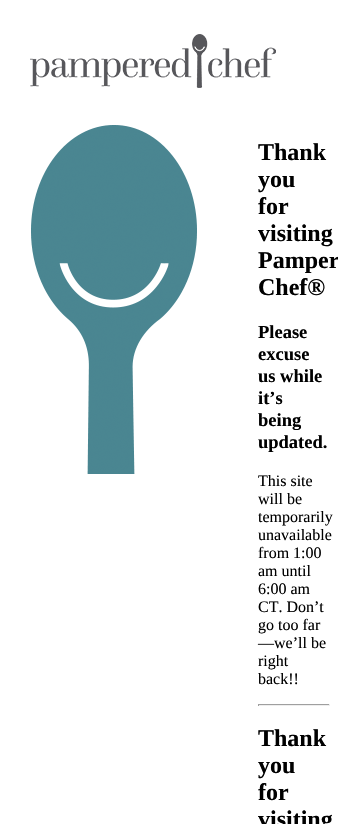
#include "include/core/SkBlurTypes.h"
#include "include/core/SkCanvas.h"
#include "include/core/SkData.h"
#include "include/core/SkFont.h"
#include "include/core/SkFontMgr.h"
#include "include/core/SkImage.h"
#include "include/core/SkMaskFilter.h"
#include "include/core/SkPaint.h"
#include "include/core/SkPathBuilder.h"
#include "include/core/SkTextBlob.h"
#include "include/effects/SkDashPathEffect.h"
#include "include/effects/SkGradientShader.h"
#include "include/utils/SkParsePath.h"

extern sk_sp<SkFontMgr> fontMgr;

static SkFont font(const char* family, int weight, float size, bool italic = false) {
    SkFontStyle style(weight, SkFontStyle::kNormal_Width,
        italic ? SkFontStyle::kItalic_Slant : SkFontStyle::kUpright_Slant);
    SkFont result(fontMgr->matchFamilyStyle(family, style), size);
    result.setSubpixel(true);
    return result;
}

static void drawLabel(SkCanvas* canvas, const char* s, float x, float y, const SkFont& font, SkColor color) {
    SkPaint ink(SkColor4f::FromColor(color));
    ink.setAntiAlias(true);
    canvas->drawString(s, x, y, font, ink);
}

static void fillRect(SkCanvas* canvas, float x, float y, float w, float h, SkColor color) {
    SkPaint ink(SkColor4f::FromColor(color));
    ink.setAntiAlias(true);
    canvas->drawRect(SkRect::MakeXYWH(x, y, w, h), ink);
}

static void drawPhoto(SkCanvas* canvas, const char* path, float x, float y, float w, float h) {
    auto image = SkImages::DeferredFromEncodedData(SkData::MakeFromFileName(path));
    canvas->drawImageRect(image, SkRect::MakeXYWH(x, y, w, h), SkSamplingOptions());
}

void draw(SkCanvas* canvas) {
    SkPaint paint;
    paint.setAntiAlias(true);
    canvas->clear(0xFFFFFFFF);
    drawPhoto(canvas, "assets/img1.png", 30, 34, 246, 54);
    drawPhoto(canvas, "assets/img2.png", 31, 125, 166, 349);
    SkFont font1 = font("Liberation Serif", 700, 24);
    drawLabel(canvas, "Thank", 258, 160, font1, 0xFF000000);
    drawLabel(canvas, "you", 258, 187, font1, 0xFF000000);
    drawLabel(canvas, "for", 258, 214, font1, 0xFF000000);
    drawLabel(canvas, "visiting", 258, 241, font1, 0xFF000000);
    drawLabel(canvas, "Pamper", 258, 268, font1, 0xFF000000);
    drawLabel(canvas, "Chef®", 258, 295, font1, 0xFF000000);
    SkFont font2 = font("Liberation Serif", 700, 18.5f);
    drawLabel(canvas, "Please", 258, 338, font2, 0xFF000000);
    drawLabel(canvas, "excuse", 258, 360, font2, 0xFF000000);
    drawLabel(canvas, "us while", 258, 382, font2, 0xFF000000);
    drawLabel(canvas, "it’s", 258, 404, font2, 0xFF000000);
    drawLabel(canvas, "being", 258, 426, font2, 0xFF000000);
    drawLabel(canvas, "updated.", 258, 448, font2, 0xFF000000);
    SkFont font3 = font("Liberation Serif", 400, 16);
    drawLabel(canvas, "This site", 258, 486, font3, 0xFF000000);
    drawLabel(canvas, "will be", 258, 504, font3, 0xFF000000);
    drawLabel(canvas, "temporarily", 258, 522, font3, 0xFF000000);
    drawLabel(canvas, "unavailable", 258, 540, font3, 0xFF000000);
    drawLabel(canvas, "from 1:00", 258, 558, font3, 0xFF000000);
    drawLabel(canvas, "am until", 258, 576, font3, 0xFF000000);
    drawLabel(canvas, "6:00 am", 258, 594, font3, 0xFF000000);
    drawLabel(canvas, "CT. Don’t", 258, 612, font3, 0xFF000000);
    drawLabel(canvas, "go too far", 258, 630, font3, 0xFF000000);
    drawLabel(canvas, "—we’ll be", 258, 648, font3, 0xFF000000);
    drawLabel(canvas, "right", 258, 666, font3, 0xFF000000);
    drawLabel(canvas, "back!!", 258, 684, font3, 0xFF000000);
    fillRect(canvas, 258, 704, 72, 1, 0xFF9F9F9F);
    fillRect(canvas, 329, 704, 1, 2, 0xFFEEEEEE);
    fillRect(canvas, 258, 705, 72, 1, 0xFFEEEEEE);
    fillRect(canvas, 258, 704, 1, 2, 0xFF9F9F9F);
    drawLabel(canvas, "Thank", 258, 746, font1, 0xFF000000);
    drawLabel(canvas, "you", 258, 773, font1, 0xFF000000);
    drawLabel(canvas, "for", 258, 800, font1, 0xFF000000);
    drawLabel(canvas, "visiting", 258, 827, font1, 0xFF000000);
}
